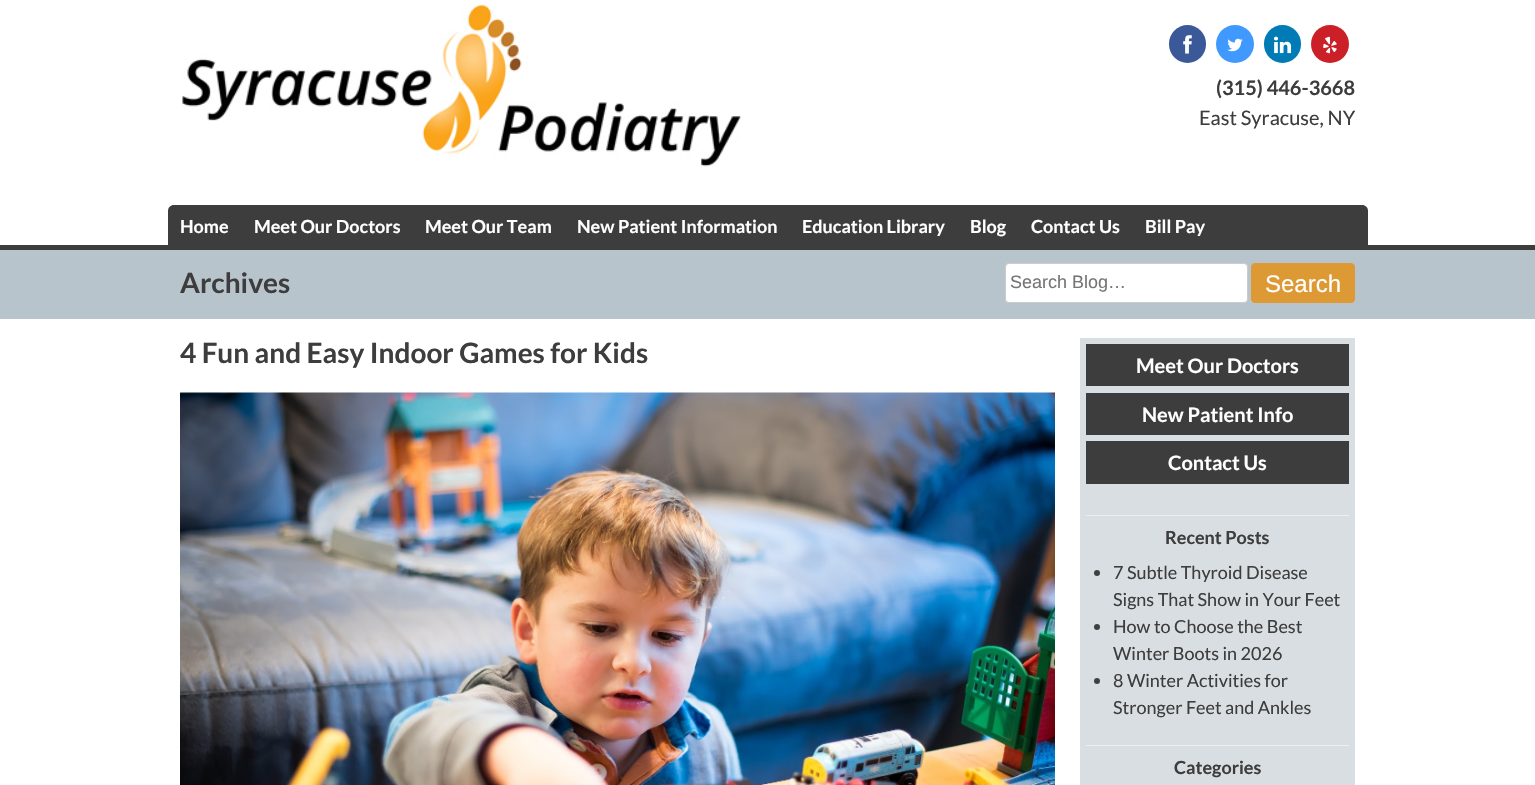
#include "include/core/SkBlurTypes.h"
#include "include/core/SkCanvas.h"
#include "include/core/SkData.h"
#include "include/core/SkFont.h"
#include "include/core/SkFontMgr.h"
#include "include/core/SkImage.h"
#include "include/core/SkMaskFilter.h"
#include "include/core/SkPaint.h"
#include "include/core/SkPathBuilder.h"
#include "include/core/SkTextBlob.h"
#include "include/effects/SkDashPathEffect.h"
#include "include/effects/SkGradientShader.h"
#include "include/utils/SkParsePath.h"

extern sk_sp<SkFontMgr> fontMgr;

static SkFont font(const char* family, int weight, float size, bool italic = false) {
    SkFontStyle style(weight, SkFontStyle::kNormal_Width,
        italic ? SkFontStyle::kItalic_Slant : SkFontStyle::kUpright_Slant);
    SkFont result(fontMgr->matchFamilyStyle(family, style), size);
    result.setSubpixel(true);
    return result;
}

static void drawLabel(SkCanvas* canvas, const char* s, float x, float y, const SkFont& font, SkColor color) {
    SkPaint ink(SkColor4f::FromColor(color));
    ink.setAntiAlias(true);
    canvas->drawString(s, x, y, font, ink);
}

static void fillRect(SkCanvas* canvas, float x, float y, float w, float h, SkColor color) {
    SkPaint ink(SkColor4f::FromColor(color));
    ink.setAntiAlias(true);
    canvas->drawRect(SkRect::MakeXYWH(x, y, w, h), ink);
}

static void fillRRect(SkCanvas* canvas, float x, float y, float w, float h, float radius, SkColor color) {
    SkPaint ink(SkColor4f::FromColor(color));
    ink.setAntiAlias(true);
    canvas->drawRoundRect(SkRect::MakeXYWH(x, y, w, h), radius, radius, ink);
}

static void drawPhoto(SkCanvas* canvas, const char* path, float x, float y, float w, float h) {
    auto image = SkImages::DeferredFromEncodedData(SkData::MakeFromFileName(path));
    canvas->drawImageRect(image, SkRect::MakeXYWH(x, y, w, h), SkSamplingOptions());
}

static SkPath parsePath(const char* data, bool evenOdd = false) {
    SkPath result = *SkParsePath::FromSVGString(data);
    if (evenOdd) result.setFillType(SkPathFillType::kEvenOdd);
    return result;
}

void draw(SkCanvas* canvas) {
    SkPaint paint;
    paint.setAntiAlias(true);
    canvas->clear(0xFFFFFFFF);
    fillRect(canvas, 0, 245, 1535, 5, 0xFF3D3D3D);
    drawPhoto(canvas, "assets/img1.png", 182, 4, 560, 163);
    fillRRect(canvas, 1169, 25, 37, 38, 18.5f, 0xFF3B5998);
    drawPhoto(canvas, "assets/img2.png", 1183, 35, 9, 19);
    paint.setColor(0xFF4099FF);
    canvas->drawCircle(1235, 44, 19, paint);
    drawPhoto(canvas, "assets/img3.png", 1227, 38, 16, 14);
    fillRRect(canvas, 1264, 25, 37, 38, 18.5f, 0xFF007BB6);
    drawPhoto(canvas, "assets/img4.png", 1274, 36, 18, 18);
    paint.setColor(0xFFCB2027);
    canvas->drawCircle(1330, 44, 19, paint);
    drawPhoto(canvas, "assets/img5.png", 1323, 36, 14, 18);
    SkFont font1 = font("Lato", 700, 20);
    drawLabel(canvas, "(315) 446-3668", 1216, 95, font1, 0xFF3D3D3D);
    SkFont font2 = font("Lato", 400, 20);
    drawLabel(canvas, "East Syracuse, NY", 1199, 125, font2, 0xFF3D3D3D);
    paint.setColor(0xFF3D3D3D);
    canvas->drawPath(parsePath("M174 205H1362C1365.5 205 1368 207.5 1368 211V245H168V211C168 207.5 170.5 205 174 205Z"), paint);
    SkFont font3 = font("Lato", 700, 18);
    drawLabel(canvas, "Home", 180, 233, font3, 0xFFFFFFFF);
    drawLabel(canvas, "Meet Our Doctors", 254, 233, font3, 0xFFFFFFFF);
    drawLabel(canvas, "Meet Our Team", 425, 233, font3, 0xFFFFFFFF);
    drawLabel(canvas, "New Patient Information", 577, 233, font3, 0xFFFFFFFF);
    drawLabel(canvas, "Education Library", 802, 233, font3, 0xFFFFFFFF);
    drawLabel(canvas, "Blog", 970, 233, font3, 0xFFFFFFFF);
    drawLabel(canvas, "Contact Us", 1031, 233, font3, 0xFFFFFFFF);
    drawLabel(canvas, "Bill Pay", 1145, 233, font3, 0xFFFFFFFF);
    fillRect(canvas, 0, 250, 1535, 69, 0xFFB8C4CB);
    SkFont font4 = font("Lato", 700, 28);
    drawLabel(canvas, "Archives", 180, 293, font4, 0xFF3D3D3D);
    paint.setColor(0xFFFFFFFF);
    canvas->drawRoundRect(SkRect::MakeXYWH(1005.5f, 263.5f, 242, 39), 3.5f, 3.5f, paint);
    paint.setStroke(true);
    paint.setStrokeWidth(1);
    paint.setColor(0xFFCCCCCC);
    canvas->drawRoundRect(SkRect::MakeXYWH(1005.5f, 263.5f, 242, 39), 3.5f, 3.5f, paint);
    SkFont font5 = font("Liberation Sans", 400, 18);
    drawLabel(canvas, "Search Blog…", 1010, 288, font5, 0xFF757575);
    paint.setStroke(false);
    paint.setColor(0xFFDD9933);
    canvas->drawRoundRect(SkRect::MakeXYWH(1251.5f, 263.5f, 103, 39), 3.5f, 3.5f, paint);
    paint.setStroke(true);
    canvas->drawRoundRect(SkRect::MakeXYWH(1251.5f, 263.5f, 103, 39), 3.5f, 3.5f, paint);
    SkFont font6 = font("Liberation Sans", 400, 24);
    drawLabel(canvas, "Search", 1265, 292, font6, 0xFFFFFFFF);
    drawLabel(canvas, "4 Fun and Easy Indoor Games for Kids", 180, 363, font4, 0xFF3D3D3D);
    drawPhoto(canvas, "assets/img6.png", 180, 392, 875, 393);
    fillRect(canvas, 1080, 338, 275, 447, 0xFFD8DEE1);
    fillRect(canvas, 1086, 515, 263, 1, 0xFFEEEEEE);
    fillRect(canvas, 1086, 344, 263, 42, 0xFF3D3D3D);
    drawLabel(canvas, "Meet Our Doctors", 1136, 373, font1, 0xFFFFFFFF);
    fillRect(canvas, 1086, 393, 263, 42, 0xFF3D3D3D);
    drawLabel(canvas, "New Patient Info", 1142, 422, font1, 0xFFFFFFFF);
    fillRect(canvas, 1086, 441, 263, 43, 0xFF3D3D3D);
    drawLabel(canvas, "Contact Us", 1168, 470, font1, 0xFFFFFFFF);
    fillRect(canvas, 1086, 745, 263, 1, 0xFFEEEEEE);
    drawLabel(canvas, "Recent Posts", 1165, 544, font3, 0xFF3D3D3D);
    paint.setStroke(false);
    paint.setColor(0xFF404040);
    canvas->drawCircle(1097, 573, 3, paint);
    SkFont font7 = font("Lato", 400, 18);
    drawLabel(canvas, "7 Subtle Thyroid Disease", 1113, 579, font7, 0xFF3D3D3D);
    drawLabel(canvas, "Signs That Show in Your Feet", 1113, 606, font7, 0xFF3D3D3D);
    canvas->drawCircle(1097, 627, 3, paint);
    drawLabel(canvas, "How to Choose the Best", 1113, 633, font7, 0xFF3D3D3D);
    drawLabel(canvas, "Winter Boots in 2026", 1113, 660, font7, 0xFF3D3D3D);
    canvas->drawCircle(1097, 681, 3, paint);
    drawLabel(canvas, "8 Winter Activities for", 1113, 687, font7, 0xFF3D3D3D);
    drawLabel(canvas, "Stronger Feet and Ankles", 1113, 714, font7, 0xFF3D3D3D);
    drawLabel(canvas, "Categories", 1174, 774, font3, 0xFF3D3D3D);
}
